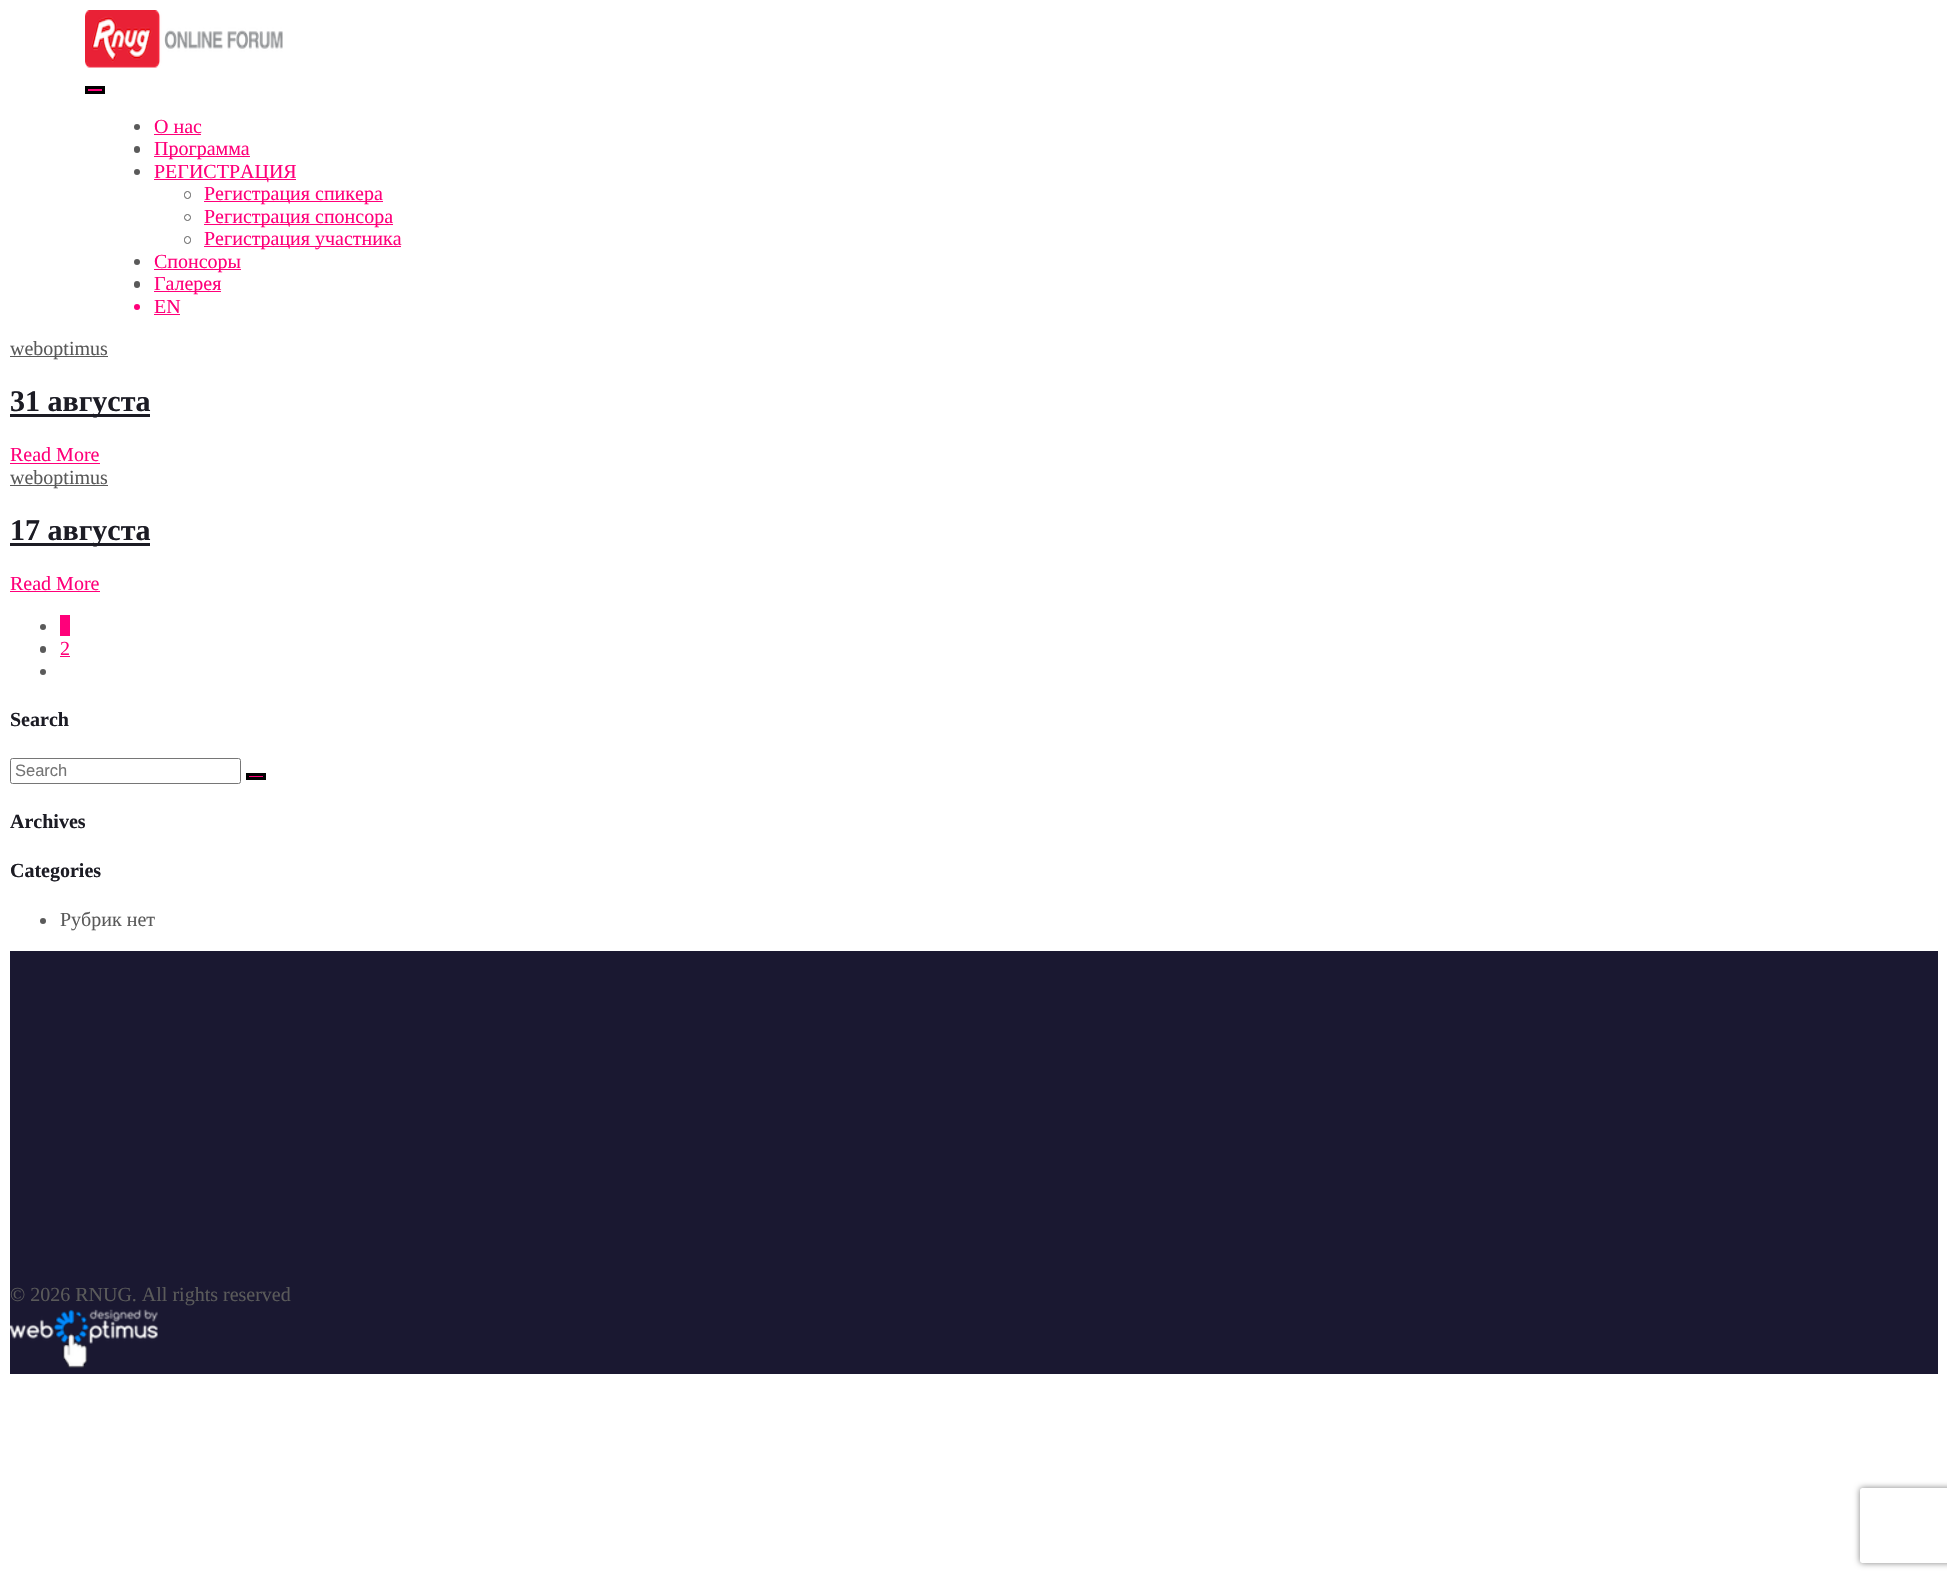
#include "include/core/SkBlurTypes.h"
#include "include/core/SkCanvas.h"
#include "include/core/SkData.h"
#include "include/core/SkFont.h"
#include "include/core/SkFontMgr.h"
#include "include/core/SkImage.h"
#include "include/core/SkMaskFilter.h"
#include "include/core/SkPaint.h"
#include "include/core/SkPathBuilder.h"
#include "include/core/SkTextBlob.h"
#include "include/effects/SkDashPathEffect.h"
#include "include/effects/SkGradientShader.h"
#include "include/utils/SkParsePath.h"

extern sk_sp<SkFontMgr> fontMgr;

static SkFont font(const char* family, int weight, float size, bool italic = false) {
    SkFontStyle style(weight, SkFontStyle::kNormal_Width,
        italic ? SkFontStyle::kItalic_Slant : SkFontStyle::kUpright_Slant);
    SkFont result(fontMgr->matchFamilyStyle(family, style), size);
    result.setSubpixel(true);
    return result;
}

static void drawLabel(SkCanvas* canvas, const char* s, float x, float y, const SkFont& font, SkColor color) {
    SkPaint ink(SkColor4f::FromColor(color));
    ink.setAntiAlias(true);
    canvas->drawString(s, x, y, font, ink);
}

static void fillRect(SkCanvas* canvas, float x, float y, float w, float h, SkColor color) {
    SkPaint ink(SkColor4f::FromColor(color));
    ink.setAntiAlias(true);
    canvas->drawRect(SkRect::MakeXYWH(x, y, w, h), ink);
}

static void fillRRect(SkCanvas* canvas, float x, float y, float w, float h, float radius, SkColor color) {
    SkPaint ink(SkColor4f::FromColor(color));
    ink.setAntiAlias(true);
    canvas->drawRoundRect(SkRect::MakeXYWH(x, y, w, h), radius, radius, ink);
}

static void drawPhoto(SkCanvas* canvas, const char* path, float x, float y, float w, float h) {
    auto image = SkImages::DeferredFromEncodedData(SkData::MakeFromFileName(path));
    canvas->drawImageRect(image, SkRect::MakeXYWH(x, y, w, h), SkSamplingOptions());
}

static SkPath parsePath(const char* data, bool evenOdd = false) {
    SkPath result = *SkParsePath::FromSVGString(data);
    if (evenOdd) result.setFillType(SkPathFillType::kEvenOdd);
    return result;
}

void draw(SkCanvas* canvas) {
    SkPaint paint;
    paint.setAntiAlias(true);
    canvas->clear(0xFFFFFFFF);
    drawPhoto(canvas, "assets/img1.png", 85, 10, 198, 58);
    paint.setColor(0xFFFF007A);
    canvas->drawRect(SkRect::MakeXYWH(86.5f, 87.5f, 17, 5), paint);
    paint.setStroke(true);
    paint.setStrokeWidth(3);
    paint.setColor(0xFF000000);
    canvas->drawRect(SkRect::MakeXYWH(86.5f, 87.5f, 17, 5), paint);
    paint.setStroke(false);
    paint.setColor(0xFF5A5A5A);
    canvas->drawCircle(137, 127, 3, paint);
    SkFont font1 = font("Liberation Serif", 400, 20);
    drawLabel(canvas, "О нас", 154, 133, font1, 0xFFFF007A);
    fillRect(canvas, 154, 134, 47, 1, 0xFFFF007A);
    fillRRect(canvas, 134, 146, 6, 7, 3, 0xFF5A5A5A);
    fillRect(canvas, 154, 156, 96, 1, 0xFFFF007A);
    drawLabel(canvas, "Программа", 154, 155, font1, 0xFFFF007A);
    canvas->drawCircle(137, 172, 3, paint);
    fillRect(canvas, 154, 179, 142, 1, 0xFFFF007A);
    drawLabel(canvas, "РЕГИСТРАЦИЯ", 154, 178, font1, 0xFFFF007A);
    paint.setStroke(true);
    paint.setStrokeWidth(1);
    canvas->drawRoundRect(SkRect::MakeXYWH(184.5f, 191.5f, 6, 7), 3, 3, paint);
    fillRect(canvas, 204, 201, 179, 1, 0xFFFF007A);
    drawLabel(canvas, "Регистрация спикера", 204, 200, font1, 0xFFFF007A);
    canvas->drawCircle(187.5f, 217.5f, 3, paint);
    fillRect(canvas, 204, 224, 189, 1, 0xFFFF007A);
    drawLabel(canvas, "Регистрация спонсора", 204, 223, font1, 0xFFFF007A);
    canvas->drawRoundRect(SkRect::MakeXYWH(184.5f, 236.5f, 6, 7), 3, 3, paint);
    fillRect(canvas, 204, 246, 197, 1, 0xFFFF007A);
    drawLabel(canvas, "Регистрация участника", 204, 245, font1, 0xFFFF007A);
    paint.setStroke(false);
    canvas->drawCircle(137, 262, 3, paint);
    fillRect(canvas, 154, 269, 87, 1, 0xFFFF007A);
    drawLabel(canvas, "Спонсоры", 154, 268, font1, 0xFFFF007A);
    fillRRect(canvas, 134, 281, 6, 7, 3, 0xFF5A5A5A);
    fillRect(canvas, 154, 291, 67, 1, 0xFFFF007A);
    drawLabel(canvas, "Галерея", 154, 290, font1, 0xFFFF007A);
    paint.setColor(0xFFFF007A);
    canvas->drawCircle(137, 307, 3, paint);
    drawLabel(canvas, "EN", 154, 313, font1, 0xFFFF007A);
    fillRect(canvas, 154, 314, 26, 1, 0xFFFF007A);
    fillRect(canvas, 10, 356, 98, 1, 0xFF5A5A5A);
    drawLabel(canvas, "weboptimus", 10, 355, font1, 0xFF5A5A5A);
    fillRect(canvas, 10, 414, 140, 3, 0xFF1C1C24);
    SkFont font2 = font("Liberation Serif", 700, 30);
    drawLabel(canvas, "31 августа", 10, 411, font2, 0xFF1C1C24);
    drawLabel(canvas, "Read More", 10, 461, font1, 0xFFFF007A);
    fillRect(canvas, 10, 463, 90, 1, 0xFFFF007A);
    fillRect(canvas, 10, 485, 98, 1, 0xFF5A5A5A);
    drawLabel(canvas, "weboptimus", 10, 484, font1, 0xFF5A5A5A);
    fillRect(canvas, 10, 543, 140, 3, 0xFF1C1C24);
    drawLabel(canvas, "17 августа", 10, 540, font2, 0xFF1C1C24);
    drawLabel(canvas, "Read More", 10, 590, font1, 0xFFFF007A);
    fillRect(canvas, 10, 591, 90, 1, 0xFFFF007A);
    paint.setColor(0xFF5A5A5A);
    canvas->drawCircle(43, 627, 3, paint);
    fillRect(canvas, 60, 615, 10, 21, 0xFFFF007A);
    fillRRect(canvas, 40, 646, 6, 7, 3, 0xFF5A5A5A);
    drawLabel(canvas, "2", 60, 655, font1, 0xFFFF007A);
    fillRect(canvas, 60, 656, 10, 1, 0xFFFF007A);
    canvas->drawCircle(43, 672, 3, paint);
    SkFont font3 = font("Liberation Serif", 700, 20);
    drawLabel(canvas, "Search", 10, 726, font3, 0xFF1C1C24);
    paint.setStroke(true);
    paint.setColor(0xFF767676);
    canvas->drawRoundRect(SkRect::MakeXYWH(10.5f, 758.5f, 230, 25), 2, 2, paint);
    SkFont font4 = font("Liberation Sans", 400, 16.5f);
    drawLabel(canvas, "Search", 15, 776, font4, 0xFF757575);
    paint.setStroke(false);
    paint.setColor(0xFFFF007A);
    canvas->drawRect(SkRect::MakeXYWH(247.5f, 774.5f, 17, 4), paint);
    paint.setStroke(true);
    paint.setStrokeWidth(3);
    paint.setColor(0xFF000000);
    canvas->drawRect(SkRect::MakeXYWH(247.5f, 774.5f, 17, 4), paint);
    drawLabel(canvas, "Archives", 10, 828, font3, 0xFF1C1C24);
    drawLabel(canvas, "Categories", 10, 877, font3, 0xFF1C1C24);
    paint.setStroke(false);
    paint.setColor(0xFF5A5A5A);
    canvas->drawCircle(43, 921, 3, paint);
    drawLabel(canvas, "Рубрик нет", 60, 926, font1, 0xFF5A5A5A);
    fillRect(canvas, 10, 951, 1928, 423, 0xFF1A1831);
    drawLabel(canvas, "© 2026 RNUG. All rights reserved", 10, 1301, font1, 0xFF5A5A5A);
    drawPhoto(canvas, "assets/img2.png", 10, 1309, 148, 59);
    canvas->save();
    canvas->clipPath(parsePath("M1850 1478H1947V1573H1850ZM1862.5 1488H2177.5C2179 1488 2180 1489 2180 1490.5V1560.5C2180 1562 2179 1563 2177.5 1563H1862.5C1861 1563 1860 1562 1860 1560.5V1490.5C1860 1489 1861 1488 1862.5 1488Z", true), true);
    paint.setColor(0xFF808080);
    paint.setMaskFilter(SkMaskFilter::MakeBlur(kNormal_SkBlurStyle, 3));
    canvas->drawRoundRect(SkRect::MakeXYWH(1860, 1488, 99, 75), 2.5f, 2.5f, paint);
    paint.setMaskFilter(nullptr);
    canvas->restore();
}
